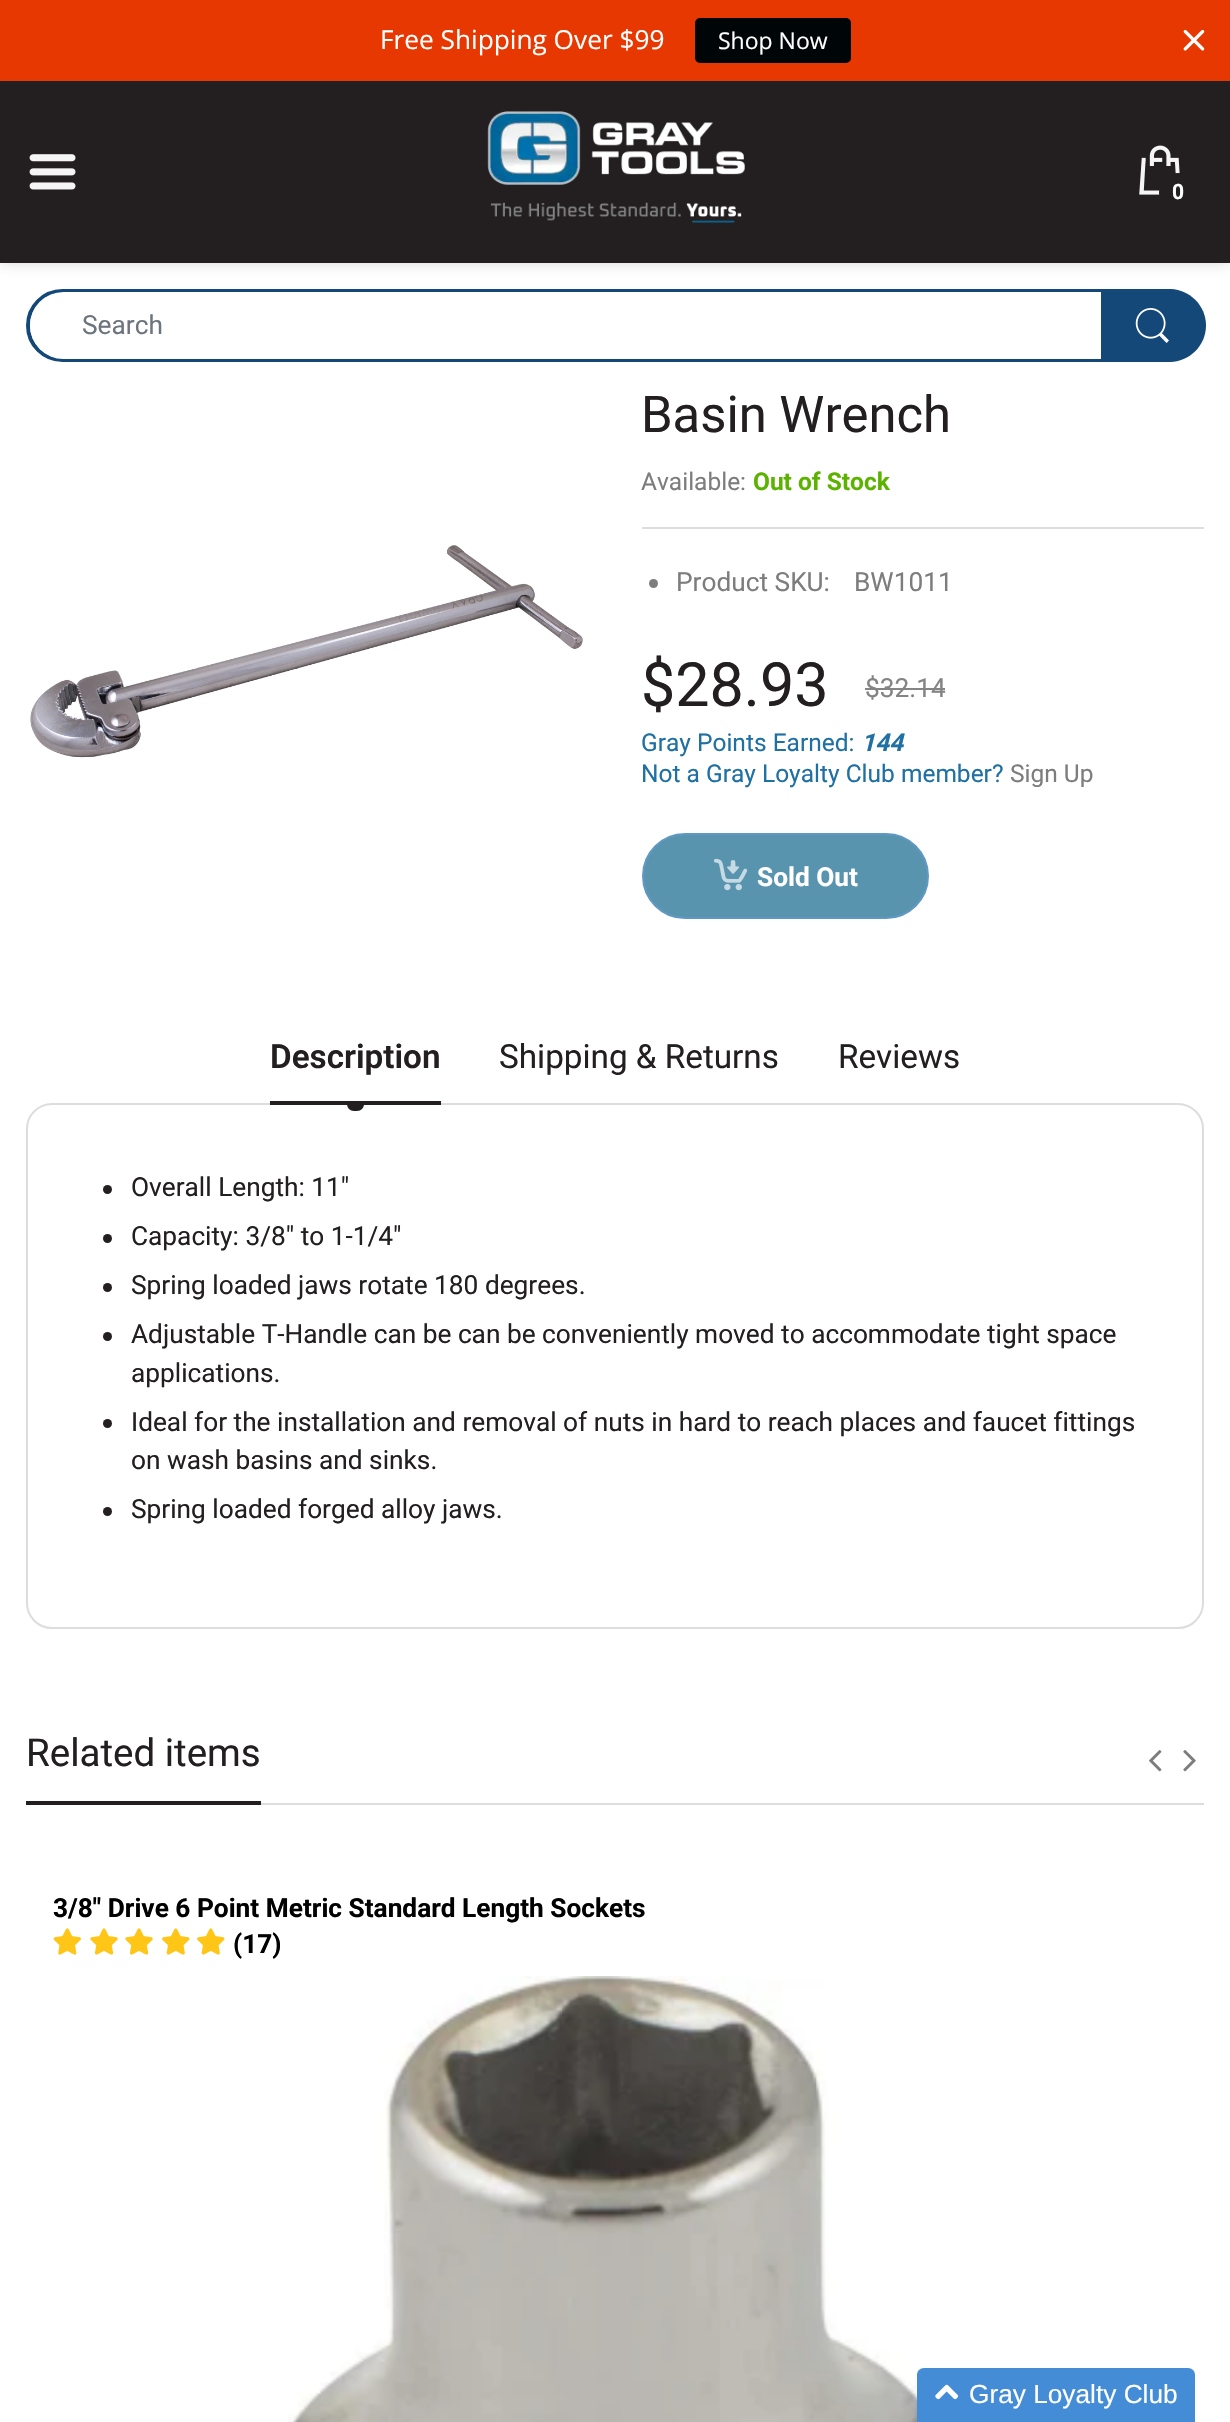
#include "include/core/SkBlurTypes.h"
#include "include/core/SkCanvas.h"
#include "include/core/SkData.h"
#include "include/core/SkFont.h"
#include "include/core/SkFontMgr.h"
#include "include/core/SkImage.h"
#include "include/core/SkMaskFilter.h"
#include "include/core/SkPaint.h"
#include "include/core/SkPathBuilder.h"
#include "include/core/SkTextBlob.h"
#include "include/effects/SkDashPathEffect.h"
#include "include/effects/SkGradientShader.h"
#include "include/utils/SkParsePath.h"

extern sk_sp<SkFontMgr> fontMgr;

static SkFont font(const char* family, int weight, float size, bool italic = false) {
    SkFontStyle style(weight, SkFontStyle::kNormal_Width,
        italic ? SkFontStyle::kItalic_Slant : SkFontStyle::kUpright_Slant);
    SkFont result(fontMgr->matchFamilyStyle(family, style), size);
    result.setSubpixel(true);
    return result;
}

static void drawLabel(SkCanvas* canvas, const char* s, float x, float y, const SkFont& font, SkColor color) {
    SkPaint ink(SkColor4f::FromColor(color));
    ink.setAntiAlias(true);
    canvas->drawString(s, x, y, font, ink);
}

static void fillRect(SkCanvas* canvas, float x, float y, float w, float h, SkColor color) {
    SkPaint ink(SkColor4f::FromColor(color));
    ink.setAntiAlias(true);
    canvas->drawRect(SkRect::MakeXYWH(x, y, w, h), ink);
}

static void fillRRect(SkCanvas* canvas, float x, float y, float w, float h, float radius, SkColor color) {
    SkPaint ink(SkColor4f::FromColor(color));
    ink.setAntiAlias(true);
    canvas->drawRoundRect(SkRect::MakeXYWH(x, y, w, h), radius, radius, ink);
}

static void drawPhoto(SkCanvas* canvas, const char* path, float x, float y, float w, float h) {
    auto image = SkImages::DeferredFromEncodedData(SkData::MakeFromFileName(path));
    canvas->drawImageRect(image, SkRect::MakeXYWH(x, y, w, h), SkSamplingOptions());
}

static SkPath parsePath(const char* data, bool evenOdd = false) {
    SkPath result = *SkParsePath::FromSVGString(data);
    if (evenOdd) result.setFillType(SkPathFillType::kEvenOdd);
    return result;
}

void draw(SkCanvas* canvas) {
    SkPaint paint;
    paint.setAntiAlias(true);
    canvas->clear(0xFFFFFFFF);
    paint.setColor(0xBFC9C9C9);
    paint.setMaskFilter(SkMaskFilter::MakeBlur(kNormal_SkBlurStyle, 7));
    canvas->drawRect(SkRect::MakeXYWH(0, 79, 1230, 184), paint);
    paint.setMaskFilter(nullptr);
    fillRect(canvas, 0, 0, 1230, 81, 0xFFE63800);
    SkFont font1 = font("Open Sans", 400, 26.25f);
    drawLabel(canvas, "Free Shipping Over $99", 380, 49, font1, 0xFFFFFFFF);
    fillRRect(canvas, 695, 18, 156, 45, 5, 0xFF000508);
    SkFont font2 = font("Open Sans", 400, 23);
    drawLabel(canvas, "Shop Now", 718, 49, font2, 0xFFFFFFFF);
    drawPhoto(canvas, "assets/img1.png", 1183, 29, 22, 22);
    fillRect(canvas, 0, 81, 1230, 182, 0xFF231F20);
    drawPhoto(canvas, "assets/img2.png", 29, 154, 47, 36);
    drawPhoto(canvas, "assets/img3.png", 487, 111, 258, 112);
    drawPhoto(canvas, "assets/img4.png", 1139, 145, 41, 50);
    fillRRect(canvas, 1159, 173, 38, 39, 19, 0xFF231F20);
    SkFont font3 = font("Roboto", 700, 21);
    drawLabel(canvas, "0", 1172, 199, font3, 0xFFFFFFFF);
    paint.setStroke(true);
    paint.setStrokeWidth(4);
    paint.setColor(0xFF134879);
    canvas->drawRoundRect(SkRect::MakeXYWH(28, 291, 1174, 69), 34.5f, 34.5f, paint);
    fillRRect(canvas, 30, 292, 1171, 67, 33.5f, 0xFFFFFFFF);
    SkFont font4 = font("Roboto", 400, 26.25f);
    drawLabel(canvas, "Search", 82, 334, font4, 0xFF6C757D);
    paint.setStroke(false);
    canvas->drawPath(parsePath("M1101 289H1169.5C1189.5 289 1206 305.5 1206 325.5C1206 345.5 1189.5 362 1169.5 362H1101Z"), paint);
    drawPhoto(canvas, "assets/img5.png", 1135, 308, 34, 35);
    drawPhoto(canvas, "assets/img6.png", 30, 545, 553, 213);
    SkFont font5 = font("Roboto", 400, 50.75f);
    drawLabel(canvas, "Basin Wrench", 641, 432, font5, 0xFF231F20);
    fillRect(canvas, 642, 527, 562, 2, 0xFFDDDDDD);
    SkFont font6 = font("Roboto", 400, 24.5f);
    drawLabel(canvas, "Available:", 641, 490, font6, 0xFF7D7D7D);
    SkFont font7 = font("Roboto", 700, 24.5f);
    drawLabel(canvas, "Out of Stock", 753, 490, font7, 0xFF5BB300);
    paint.setColor(0xFF7D7D7D);
    canvas->drawCircle(653.5f, 583.5f, 4.5f, paint);
    drawLabel(canvas, "Product SKU:", 676, 591, font4, 0xFF7D7D7D);
    drawLabel(canvas, "BW1011", 854, 591, font4, 0xFF7D7D7D);
    SkFont font8 = font("Roboto", 400, 61);
    drawLabel(canvas, "$28.93", 641, 706, font8, 0xFF231F20);
    drawLabel(canvas, "$32.14", 865, 697, font4, 0xFF848484);
    fillRect(canvas, 865, 688, 80, 2, 0xFF848484);
    drawLabel(canvas, "Gray Points Earned:", 641, 751, font6, 0xFF1F70A3);
    SkFont font9 = font("Roboto", 700, 24.5f, true);
    drawLabel(canvas, "144", 861, 751, font9, 0xFF1F70A3);
    drawLabel(canvas, "Not a Gray Loyalty Club member?", 641, 782, font6, 0xFF1F70A3);
    drawLabel(canvas, "Sign Up", 1010, 782, font6, 0xFF7D7D7D);
    paint.setColor(0xFF5994AF);
    canvas->drawRoundRect(SkRect::MakeXYWH(643, 834, 285, 84), 42, 42, paint);
    paint.setStroke(true);
    paint.setStrokeWidth(2);
    paint.setColor(0xFF6098C5);
    canvas->drawRoundRect(SkRect::MakeXYWH(643, 834, 285, 84), 42, 42, paint);
    drawPhoto(canvas, "assets/img7.png", 714, 858, 34, 33);
    SkFont font10 = font("Roboto", 700, 26.25f);
    drawLabel(canvas, "Sold Out", 757, 886, font10, 0xFFFFFFFF);
    SkFont font11 = font("Roboto", 600, 33.25f);
    drawLabel(canvas, "Description", 270, 1068, font11, 0xFF231F20);
    paint.setColor(0xFFDDDDDD);
    canvas->drawRoundRect(SkRect::MakeXYWH(27, 1104, 1176, 524), 25, 25, paint);
    fillRect(canvas, 270, 1101, 171, 4, 0xFF231F20);
    paint.setStroke(false);
    paint.setColor(0xFF231F20);
    canvas->drawPath(parsePath("M347 1104H364C364 1108 361 1111 357 1111H354C350 1111 347 1108 347 1104Z"), paint);
    SkFont font12 = font("Roboto", 400, 33.25f);
    drawLabel(canvas, "Shipping & Returns", 499, 1068, font12, 0xFF231F20);
    drawLabel(canvas, "Reviews", 838, 1068, font12, 0xFF231F20);
    canvas->drawCircle(107.5f, 1189.5f, 4.5f, paint);
    drawLabel(canvas, "Overall Length: 11\"", 131, 1196, font4, 0xFF231F20);
    canvas->drawCircle(107.5f, 1238.5f, 4.5f, paint);
    drawLabel(canvas, "Capacity: 3/8\" to 1-1/4\"", 131, 1245, font4, 0xFF231F20);
    canvas->drawCircle(107.5f, 1287.5f, 4.5f, paint);
    drawLabel(canvas, "Spring loaded jaws rotate 180 degrees.", 131, 1294, font4, 0xFF231F20);
    canvas->drawCircle(107.5f, 1336.5f, 4.5f, paint);
    drawLabel(canvas, "Adjustable T-Handle can be can be conveniently moved to accommodate tight space", 131, 1343, font4, 0xFF231F20);
    drawLabel(canvas, "applications.", 131, 1382, font4, 0xFF231F20);
    canvas->drawCircle(107.5f, 1423.5f, 4.5f, paint);
    drawLabel(canvas, "Ideal for the installation and removal of nuts in hard to reach places and faucet fittings", 131, 1431, font4, 0xFF231F20);
    drawLabel(canvas, "on wash basins and sinks.", 131, 1469, font4, 0xFF231F20);
    canvas->drawCircle(107.5f, 1511.5f, 4.5f, paint);
    drawLabel(canvas, "Spring loaded forged alloy jaws.", 131, 1518, font4, 0xFF231F20);
    fillRect(canvas, 261, 1803, 943, 2, 0xFFDDDDDD);
    SkFont font13 = font("Roboto", 400, 38.5f);
    drawLabel(canvas, "Related items", 26, 1766, font13, 0xFF231F20);
    fillRect(canvas, 26, 1801, 235, 4, 0xFF231F20);
    drawPhoto(canvas, "assets/img8.png", 1149, 1750, 13, 22);
    drawPhoto(canvas, "assets/img9.png", 1183, 1750, 13, 22);
    drawLabel(canvas, "3/8\" Drive 6 Point Metric Standard Length Sockets", 53, 1917, font10, 0xFF000000);
    drawPhoto(canvas, "assets/img10.png", 53, 1928, 28, 27);
    drawPhoto(canvas, "assets/img11.png", 90, 1928, 28, 27);
    drawPhoto(canvas, "assets/img11.png", 125, 1928, 28, 27);
    drawPhoto(canvas, "assets/img12.png", 162, 1928, 28, 27);
    drawPhoto(canvas, "assets/img12.png", 197, 1928, 28, 27);
    drawLabel(canvas, "(17)", 233, 1953, font10, 0xFF000000);
    drawPhoto(canvas, "assets/img13.png", 288, 1976, 654, 446);
    paint.setColor(0xFF448DD6);
    canvas->drawPath(parsePath("M924 2368H1188C1192 2368 1195 2371 1195 2375V2422H917V2375C917 2371 920 2368 924 2368Z"), paint);
    drawPhoto(canvas, "assets/img14.png", 935, 2384, 24, 16);
    SkFont font14 = font("Liberation Sans", 400, 26.25f);
    drawLabel(canvas, "Gray Loyalty Club", 969, 2403, font14, 0xFFFFFFFF);
}
